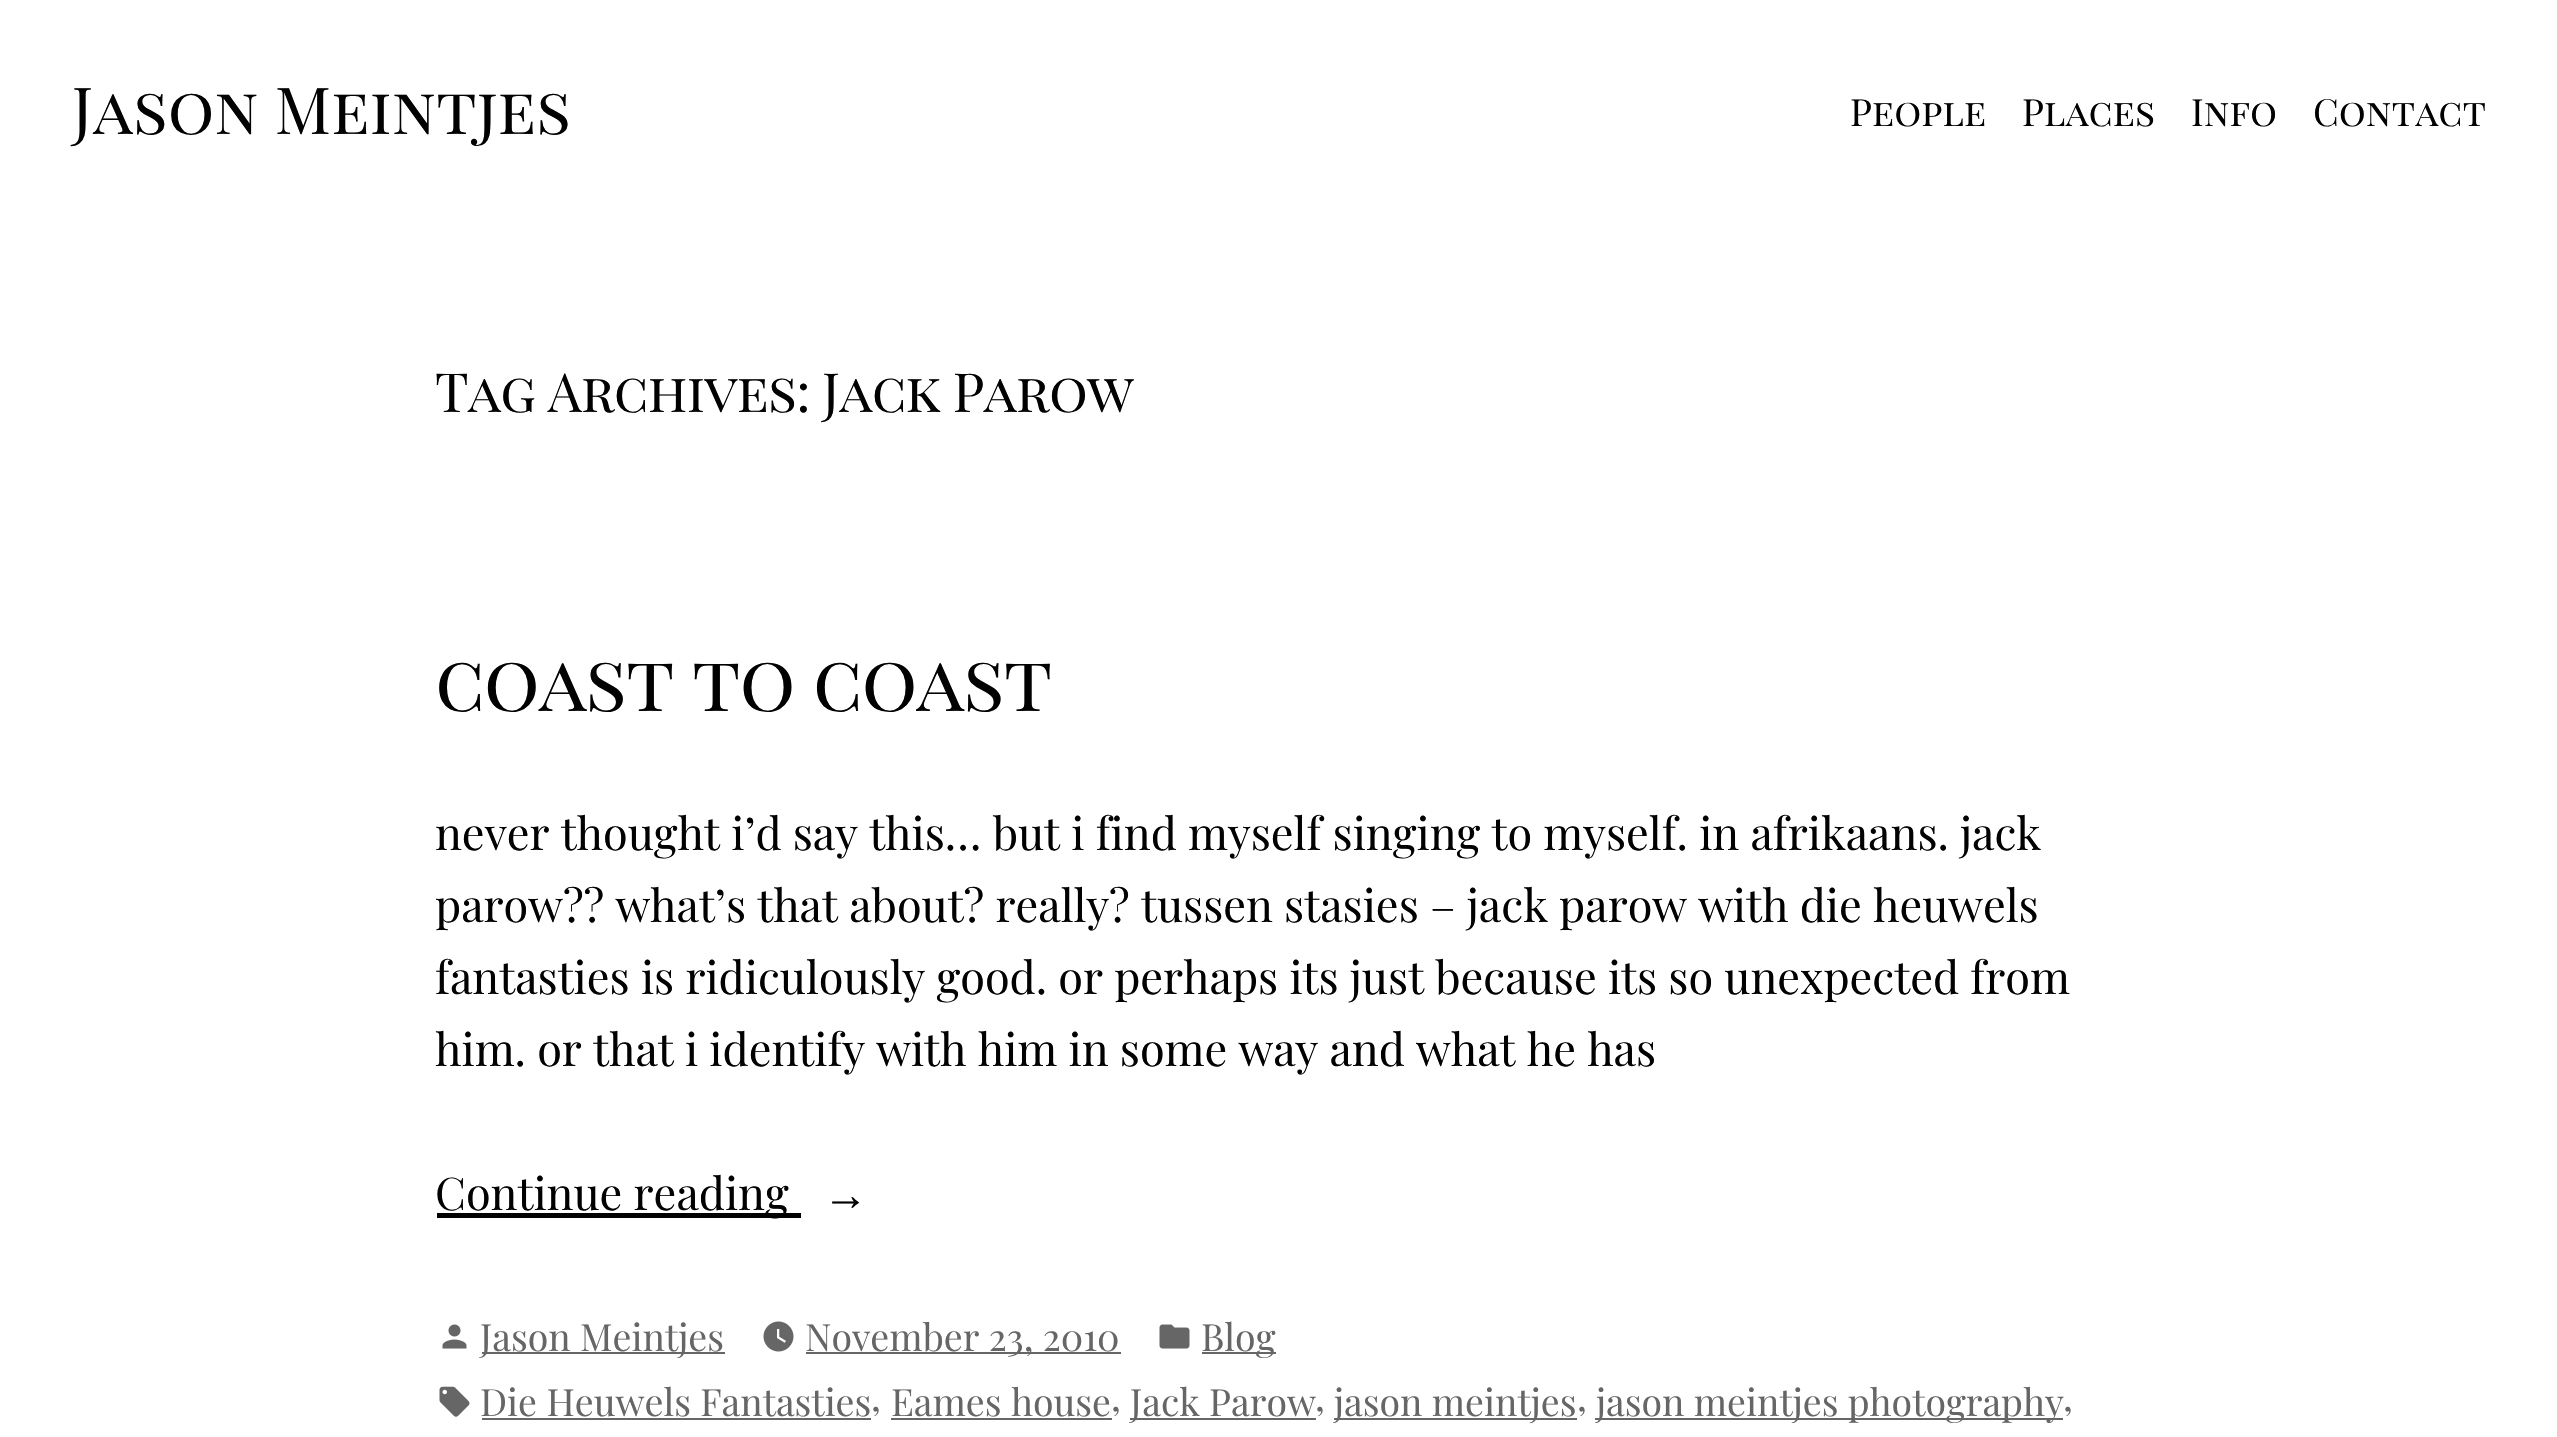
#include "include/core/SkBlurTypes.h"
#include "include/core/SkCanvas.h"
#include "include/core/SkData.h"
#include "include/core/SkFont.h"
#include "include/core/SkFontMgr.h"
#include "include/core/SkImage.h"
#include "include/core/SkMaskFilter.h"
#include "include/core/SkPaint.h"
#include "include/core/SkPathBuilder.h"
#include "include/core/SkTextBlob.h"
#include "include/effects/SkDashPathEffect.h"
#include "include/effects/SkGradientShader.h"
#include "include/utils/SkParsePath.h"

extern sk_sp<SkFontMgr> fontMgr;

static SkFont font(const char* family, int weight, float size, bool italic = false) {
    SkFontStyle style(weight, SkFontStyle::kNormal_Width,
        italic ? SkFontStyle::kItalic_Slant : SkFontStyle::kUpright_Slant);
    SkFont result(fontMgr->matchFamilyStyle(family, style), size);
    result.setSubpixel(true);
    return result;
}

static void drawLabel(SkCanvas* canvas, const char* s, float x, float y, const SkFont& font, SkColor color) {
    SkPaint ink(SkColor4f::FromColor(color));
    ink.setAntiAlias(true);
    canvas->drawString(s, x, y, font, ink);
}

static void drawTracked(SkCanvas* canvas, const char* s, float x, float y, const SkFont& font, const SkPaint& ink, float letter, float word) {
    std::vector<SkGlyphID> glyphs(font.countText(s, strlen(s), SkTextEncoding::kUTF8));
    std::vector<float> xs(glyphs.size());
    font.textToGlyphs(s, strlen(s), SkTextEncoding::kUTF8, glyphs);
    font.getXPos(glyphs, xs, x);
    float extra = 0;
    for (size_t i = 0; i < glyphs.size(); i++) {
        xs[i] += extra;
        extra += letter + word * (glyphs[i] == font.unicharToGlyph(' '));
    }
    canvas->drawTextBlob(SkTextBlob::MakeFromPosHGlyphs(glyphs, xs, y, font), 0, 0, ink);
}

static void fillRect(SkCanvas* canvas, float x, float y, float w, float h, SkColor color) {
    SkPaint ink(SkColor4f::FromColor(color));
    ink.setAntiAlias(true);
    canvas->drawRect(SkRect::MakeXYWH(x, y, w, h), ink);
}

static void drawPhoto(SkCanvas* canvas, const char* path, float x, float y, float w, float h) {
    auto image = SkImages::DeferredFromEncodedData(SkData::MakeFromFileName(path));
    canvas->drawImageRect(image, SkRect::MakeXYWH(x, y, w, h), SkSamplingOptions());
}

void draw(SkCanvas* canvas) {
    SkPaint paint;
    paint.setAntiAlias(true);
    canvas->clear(0xFFFFFFFF);
    SkFont font1 = font("Playfair Display SC", 400, 64.75f);
    drawLabel(canvas, "Jason Meintjes", 72, 134, font1, 0xFF010101);
    SkFont font2 = font("Playfair Display SC", 400, 37.5f);
    drawLabel(canvas, "People", 1850, 126, font2, 0xFF010101);
    drawLabel(canvas, "Places", 2022, 126, font2, 0xFF010101);
    drawLabel(canvas, "Info", 2191, 126, font2, 0xFF010101);
    drawLabel(canvas, "Contact", 2313, 126, font2, 0xFF010101);
    SkFont font3 = font("Playfair Display SC", 400, 54);
    paint.setColor(0xFF010101);
    drawTracked(canvas, "Tag Archives: Jack Parow", 435, 412, font3, paint, -0.8f, 0);
    SkFont font4 = font("Playfair Display SC", 400, 77.75f);
    drawTracked(canvas, "coast to coast", 435, 711, font4, paint, -1.2f, 0);
    SkFont font5 = font("Playfair Display", 400, 45);
    drawLabel(canvas, "never thought i’d say this… but i find myself singing to myself. in afrikaans. jack", 435, 850, font5, 0xFF010101);
    drawLabel(canvas, "parow?\077 what’s that about? really? tussen stasies – jack parow with die heuwels", 435, 922, font5, 0xFF010101);
    drawLabel(canvas, "fantasties is ridiculously good. or perhaps its just because its so unexpected from", 435, 994, font5, 0xFF010101);
    drawLabel(canvas, "him. or that i identify with him in some way and what he has", 435, 1066, font5, 0xFF010101);
    fillRect(canvas, 437, 1213, 364, 5, 0xFF010101);
    drawLabel(canvas, "Continue reading", 435, 1210, font5, 0xFF010101);
    SkFont font6 = font("Liberation Serif", 400, 45);
    drawLabel(canvas, "→", 823, 1210, font6, 0xFF010101);
    drawPhoto(canvas, "assets/img1.png", 442, 1324, 25, 25);
    fillRect(canvas, 482, 1352, 243, 2, 0xFF666666);
    SkFont font7 = font("Playfair Display", 400, 37.5f);
    drawLabel(canvas, "Jason Meintjes", 480, 1351, font7, 0xFF666666);
    drawPhoto(canvas, "assets/img2.png", 763, 1321, 31, 31);
    fillRect(canvas, 806, 1352, 315, 2, 0xFF666666);
    drawLabel(canvas, "November 23, 2010", 805, 1351, font7, 0xFF666666);
    drawPhoto(canvas, "assets/img3.png", 1159, 1324, 31, 25);
    fillRect(canvas, 1202, 1352, 74, 2, 0xFF666666);
    drawLabel(canvas, "Blog", 1201, 1351, font7, 0xFF666666);
    drawPhoto(canvas, "assets/img4.png", 439, 1386, 31, 31);
    drawLabel(canvas, "Die Heuwels Fantasties", 480, 1416, font7, 0xFF666666);
    fillRect(canvas, 482, 1418, 389, 2, 0xFF666666);
    drawLabel(canvas, ",", 871, 1411, font7, 0xFF666666);
    drawLabel(canvas, "Eames house", 891, 1416, font7, 0xFF666666);
    fillRect(canvas, 891, 1418, 221, 2, 0xFF666666);
    drawLabel(canvas, ",", 1111, 1411, font7, 0xFF666666);
    fillRect(canvas, 1130, 1418, 186, 2, 0xFF666666);
    drawLabel(canvas, "Jack Parow", 1130, 1416, font7, 0xFF666666);
    drawLabel(canvas, ",", 1315, 1411, font7, 0xFF666666);
    fillRect(canvas, 1334, 1418, 243, 2, 0xFF666666);
    drawLabel(canvas, "jason meintjes", 1334, 1416, font7, 0xFF666666);
    drawLabel(canvas, ",", 1577, 1411, font7, 0xFF666666);
    fillRect(canvas, 1595, 1418, 468, 2, 0xFF666666);
    drawLabel(canvas, "jason meintjes photography", 1596, 1416, font7, 0xFF666666);
    drawLabel(canvas, ",", 2063, 1411, font7, 0xFF666666);
}
